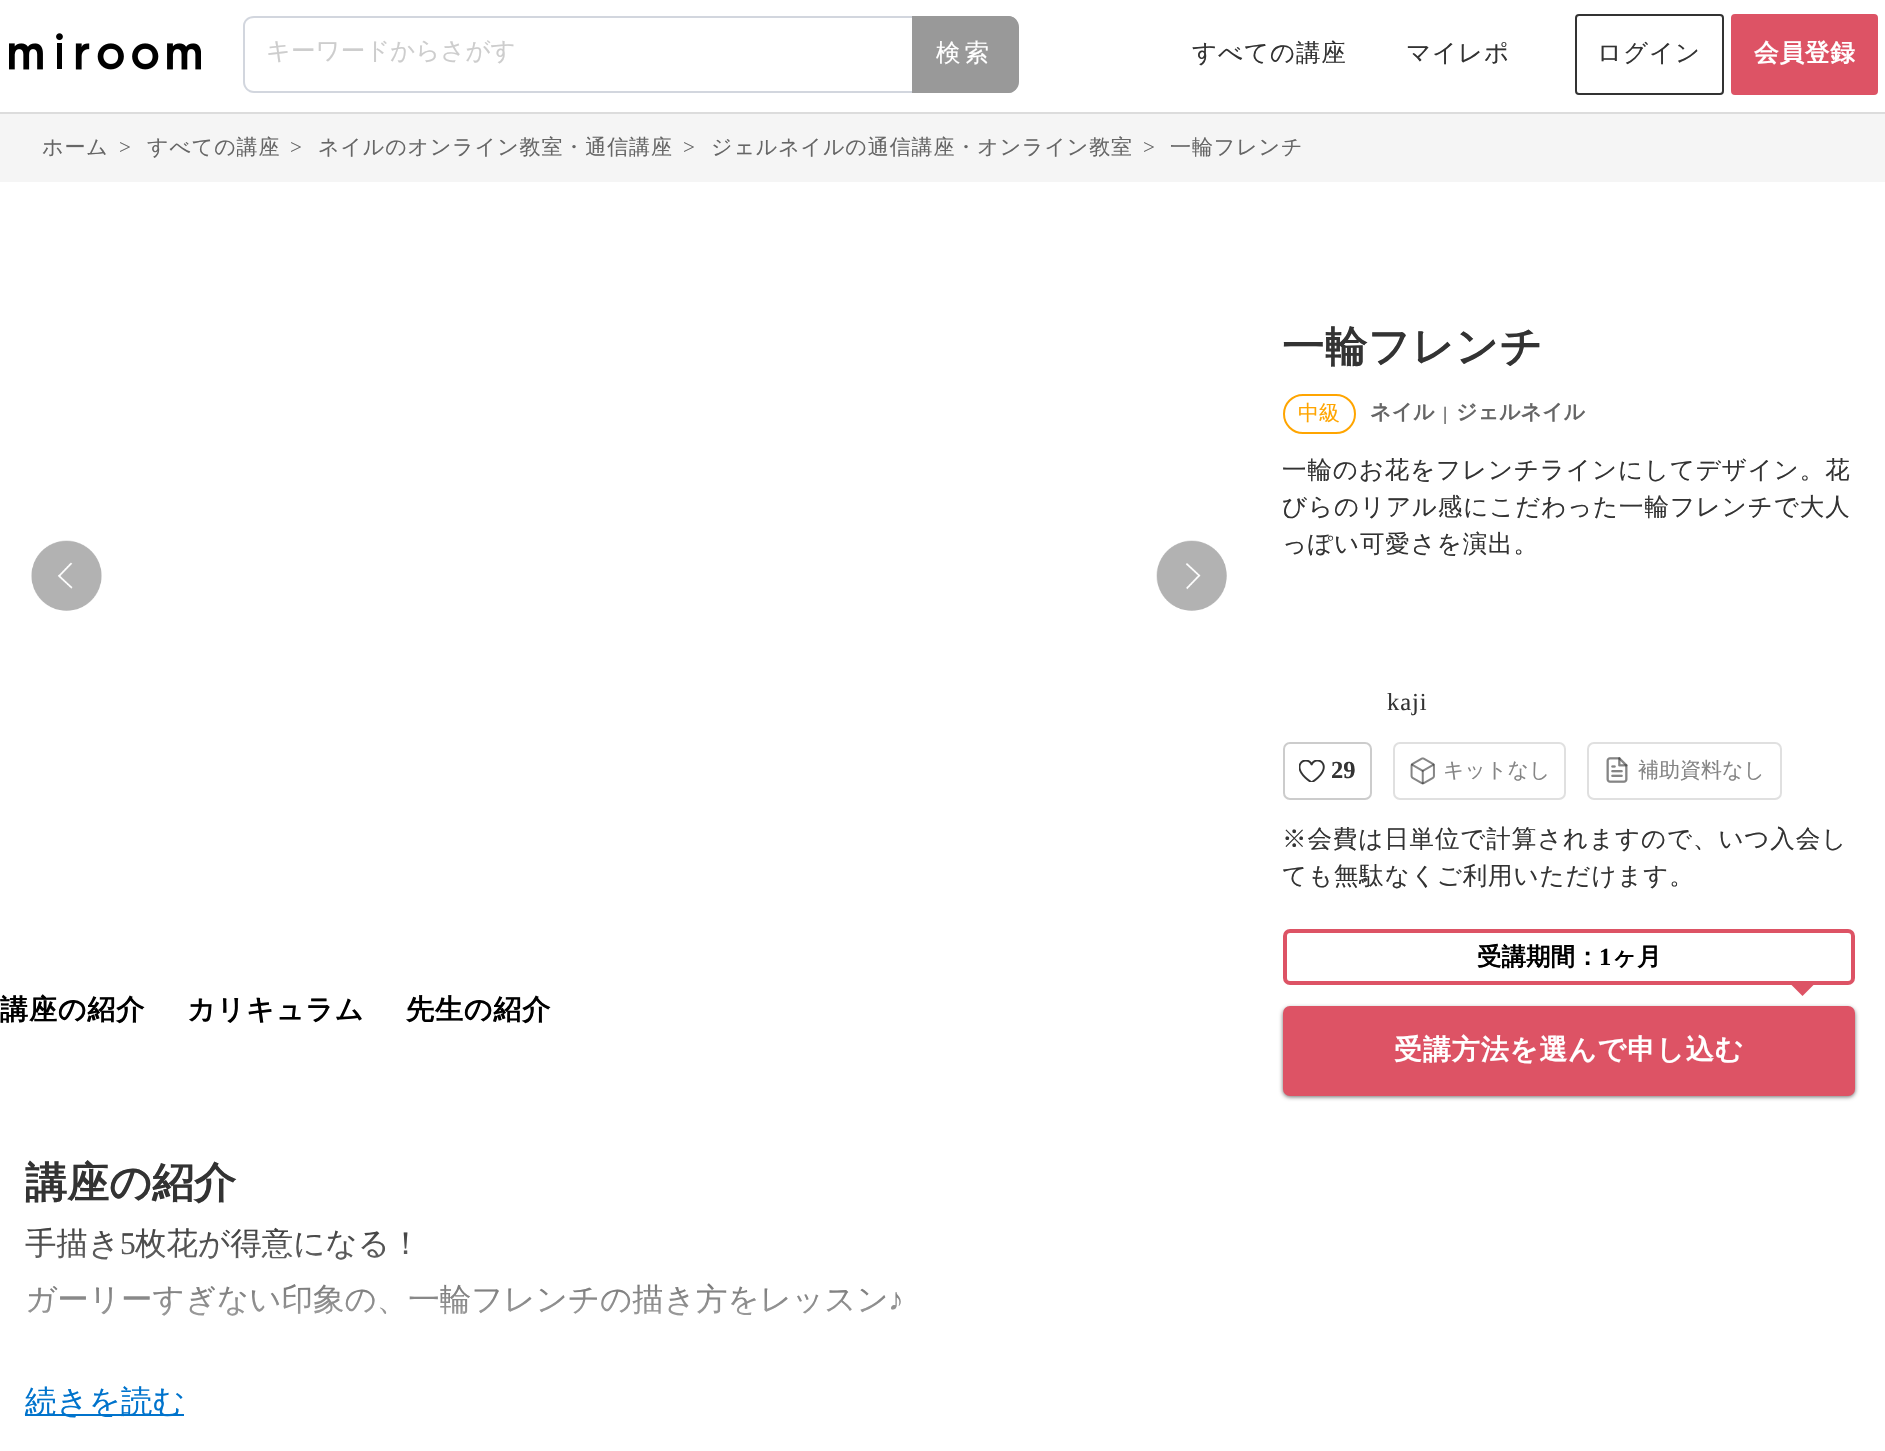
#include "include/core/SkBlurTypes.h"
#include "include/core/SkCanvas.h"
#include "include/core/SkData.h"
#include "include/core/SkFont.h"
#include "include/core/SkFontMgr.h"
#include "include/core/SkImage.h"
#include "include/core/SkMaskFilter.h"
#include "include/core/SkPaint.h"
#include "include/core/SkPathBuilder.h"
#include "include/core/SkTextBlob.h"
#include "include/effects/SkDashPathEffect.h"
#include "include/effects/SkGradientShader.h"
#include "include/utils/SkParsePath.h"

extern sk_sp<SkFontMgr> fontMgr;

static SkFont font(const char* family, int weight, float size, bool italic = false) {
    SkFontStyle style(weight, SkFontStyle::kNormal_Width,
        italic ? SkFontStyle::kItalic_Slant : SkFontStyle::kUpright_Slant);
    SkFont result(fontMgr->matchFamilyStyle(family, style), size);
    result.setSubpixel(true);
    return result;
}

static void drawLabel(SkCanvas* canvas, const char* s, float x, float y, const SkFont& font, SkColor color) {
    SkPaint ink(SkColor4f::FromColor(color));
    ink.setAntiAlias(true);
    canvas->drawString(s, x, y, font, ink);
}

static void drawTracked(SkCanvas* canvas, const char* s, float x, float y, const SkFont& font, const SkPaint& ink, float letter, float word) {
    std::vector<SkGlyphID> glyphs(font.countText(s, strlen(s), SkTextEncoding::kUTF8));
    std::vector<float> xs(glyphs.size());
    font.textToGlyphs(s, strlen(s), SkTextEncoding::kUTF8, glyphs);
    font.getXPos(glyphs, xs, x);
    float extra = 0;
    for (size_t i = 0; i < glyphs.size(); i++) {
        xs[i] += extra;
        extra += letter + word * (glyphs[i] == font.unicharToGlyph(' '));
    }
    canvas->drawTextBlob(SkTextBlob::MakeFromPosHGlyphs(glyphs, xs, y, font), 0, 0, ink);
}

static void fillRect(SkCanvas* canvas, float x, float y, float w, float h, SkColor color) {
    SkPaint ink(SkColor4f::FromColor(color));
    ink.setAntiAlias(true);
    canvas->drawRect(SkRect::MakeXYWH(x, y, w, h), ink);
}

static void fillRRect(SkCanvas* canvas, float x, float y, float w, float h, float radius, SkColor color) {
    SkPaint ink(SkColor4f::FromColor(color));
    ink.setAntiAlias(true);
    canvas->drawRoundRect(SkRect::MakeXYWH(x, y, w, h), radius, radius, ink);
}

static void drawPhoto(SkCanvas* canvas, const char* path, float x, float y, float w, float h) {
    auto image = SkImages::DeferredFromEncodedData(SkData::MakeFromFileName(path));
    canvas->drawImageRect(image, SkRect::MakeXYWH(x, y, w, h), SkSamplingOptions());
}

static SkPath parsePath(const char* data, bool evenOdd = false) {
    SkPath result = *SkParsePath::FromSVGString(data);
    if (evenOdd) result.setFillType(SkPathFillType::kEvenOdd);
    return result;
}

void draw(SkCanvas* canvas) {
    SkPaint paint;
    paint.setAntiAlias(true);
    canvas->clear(0xFFFFFFFF);
    fillRect(canvas, 0, 112, 1885, 2, 0xFFDCDCDC);
    drawPhoto(canvas, "assets/img1.png", 9, 33, 192, 37);
    paint.setColor(0xFFD2D6DE);
    canvas->drawPath(parsePath("M254 16H912V93H254C248 93 243 88 243 82V26C243 20 248 16 254 16ZM254 18H912V91H254C249 91 245 87 245 82V26C245 21 249 18 254 18Z", true), paint);
    SkFont font1 = font("WenQuanYi Zen Hei", 500, 24.5f);
    drawLabel(canvas, "キーワードからさがす", 266, 59, font1, 0xFFCDCDCD);
    paint.setColor(0xFF999999);
    canvas->drawPath(parsePath("M912 16H1008C1014 16 1019 21 1019 27V82C1019 88 1014 93 1008 93H912Z"), paint);
    canvas->drawPath(parsePath("M912 16H1008C1014 16 1018 20 1018 26V82C1018 88 1014 93 1008 93H912ZM912 18H1008C1013 18 1017 21 1017 26V82C1017 87 1013 91 1008 91H912Z", true), paint);
    paint.setColor(0xFFFFFFFF);
    drawTracked(canvas, "検索", 936, 61, font1, paint, 4, 0);
    paint.setColor(0xFF333333);
    drawTracked(canvas, "すべての講座", 1192, 61, font1, paint, 0.9f, 0);
    drawTracked(canvas, "マイレポ", 1406, 61, font1, paint, 0.9f, 0);
    paint.setStroke(true);
    paint.setStrokeWidth(2);
    canvas->drawRoundRect(SkRect::MakeXYWH(1576, 15, 147, 79), 3, 3, paint);
    paint.setStroke(false);
    drawTracked(canvas, "ログイン", 1597, 61, font1, paint, 0.9f, 0);
    paint.setColor(0xFFDD5365);
    canvas->drawRoundRect(SkRect::MakeXYWH(1732, 15, 145, 79), 3, 3, paint);
    paint.setStroke(true);
    canvas->drawRoundRect(SkRect::MakeXYWH(1732, 15, 145, 79), 3, 3, paint);
    SkFont font2 = font("WenQuanYi Zen Hei", 700, 24.5f);
    paint.setStroke(false);
    paint.setColor(0xFFFFFFFF);
    drawTracked(canvas, "会員登録", 1754, 61, font2, paint, 0.9f, 0);
    fillRect(canvas, 0, 114, 1885, 68, 0xFFF5F5F5);
    SkFont font3 = font("WenQuanYi Zen Hei", 500, 21);
    paint.setColor(0xFF666666);
    drawTracked(canvas, "ホーム", 42, 154, font3, paint, 0.9f, 0);
    SkFont font4 = font("Liberation Serif", 400, 21);
    drawTracked(canvas, ">", 119, 154, font4, paint, 5, 0);
    drawTracked(canvas, "すべての講座", 147, 154, font3, paint, 0.9f, 0);
    drawTracked(canvas, ">", 290, 154, font4, paint, 5, 0);
    drawTracked(canvas, "ネイルのオンライン教室・通信講座", 318, 154, font3, paint, 0.9f, 0);
    drawTracked(canvas, ">", 683, 154, font4, paint, 5, 0);
    drawTracked(canvas, "ジェルネイルの通信講座・オンライン教室", 711, 154, font3, paint, 0.9f, 0);
    drawTracked(canvas, ">", 1143, 154, font4, paint, 5, 0);
    drawTracked(canvas, "一輪フレンチ", 1170, 154, font3, paint, 0.9f, 0);
    SkFont font5 = font("WenQuanYi Zen Hei", 700, 42);
    paint.setColor(0xFF333333);
    drawTracked(canvas, "一輪フレンチ", 1282, 361, font5, paint, 0.9f, 0);
    paint.setStroke(true);
    paint.setColor(0xFFFFA500);
    canvas->drawRoundRect(SkRect::MakeXYWH(1284, 395, 71, 38), 19, 19, paint);
    drawLabel(canvas, "中級", 1298, 420, font3, 0xFFFFA500);
    SkFont font6 = font("WenQuanYi Zen Hei", 700, 21);
    drawLabel(canvas, "ネイル", 1370, 419, font6, 0xFF666666);
    SkFont font7 = font("Liberation Serif", 700, 19);
    drawLabel(canvas, "|", 1443, 420, font7, 0xFF666666);
    drawLabel(canvas, "ジェルネイル", 1456, 419, font6, 0xFF666666);
    paint.setStroke(false);
    paint.setColor(0xFF333333);
    drawTracked(canvas, "一輪のお花をフレンチラインにしてデザイン。花", 1282, 478, font1, paint, 0.9f, 0);
    drawTracked(canvas, "びらのリアル感にこだわった一輪フレンチで大人", 1282, 515, font1, paint, 0.9f, 0);
    drawTracked(canvas, "っぽい可愛さを演出。", 1282, 552, font1, paint, 0.9f, 0);
    SkFont font8 = font("Liberation Serif", 400, 24.5f);
    drawTracked(canvas, "kaji", 1387, 710, font8, paint, 0.9f, 0);
    paint.setStroke(true);
    paint.setColor(0xFFCCCCCC);
    canvas->drawRoundRect(SkRect::MakeXYWH(1284, 743, 87, 56), 6, 6, paint);
    drawPhoto(canvas, "assets/img2.png", 1299, 760, 26, 22);
    SkFont font9 = font("Liberation Serif", 700, 24.5f);
    drawLabel(canvas, "29", 1331, 778, font9, 0xFF333333);
    paint.setColor(0xFFE0E0E0);
    canvas->drawRoundRect(SkRect::MakeXYWH(1394, 743, 171, 56), 6, 6, paint);
    drawPhoto(canvas, "assets/img3.png", 1410, 757, 25, 28);
    drawLabel(canvas, "キットなし", 1443, 777, font3, 0xFF858585);
    canvas->drawRoundRect(SkRect::MakeXYWH(1588, 743, 193, 56), 6, 6, paint);
    drawPhoto(canvas, "assets/img4.png", 1606, 757, 22, 26);
    drawLabel(canvas, "補助資料なし", 1638, 777, font3, 0xFF858585);
    paint.setStroke(false);
    paint.setColor(0xFF333333);
    drawTracked(canvas, "※会費は日単位で計算されますので、いつ入会し", 1282, 847, font1, paint, 0.9f, 0);
    drawTracked(canvas, "ても無駄なくご利用いただけます。", 1282, 884, font1, paint, 0.9f, 0);
    paint.setStroke(true);
    paint.setStrokeWidth(4);
    paint.setColor(0xFFDD5365);
    canvas->drawRoundRect(SkRect::MakeXYWH(1285, 931, 568, 52), 5, 5, paint);
    drawLabel(canvas, "受講期間：", 1477, 965, font2, 0xFF000000);
    drawLabel(canvas, "1", 1599, 965, font9, 0xFF000000);
    drawLabel(canvas, "ヶ月", 1612, 965, font2, 0xFF000000);
    paint.setStroke(false);
    canvas->drawPath(parsePath("M1788.5 982H1816.5L1802.5 996Z"), paint);
    paint.setColor(0xFF6F6F6F);
    paint.setMaskFilter(SkMaskFilter::MakeBlur(kNormal_SkBlurStyle, 2));
    canvas->drawRoundRect(SkRect::MakeXYWH(1283, 1008, 572, 89), 7, 7, paint);
    paint.setMaskFilter(nullptr);
    fillRRect(canvas, 1283, 1006, 572, 90, 7, 0xFFDD5365);
    SkFont font10 = font("WenQuanYi Zen Hei", 700, 28);
    paint.setColor(0xFFFFFFFF);
    drawTracked(canvas, "受講方法を選んで申し込む", 1394, 1059, font10, paint, 0.9f, 0);
    paint.setColor(0xFF000000);
    drawTracked(canvas, "講座の紹介", 0, 1019, font10, paint, 0.9f, 0);
    drawTracked(canvas, "カリキュラム", 187, 1019, font10, paint, 0.9f, 0);
    drawTracked(canvas, "先生の紹介", 406, 1019, font10, paint, 0.9f, 0);
    drawLabel(canvas, "講座の紹介", 25, 1197, font5, 0xFF333333);
    SkFont font11 = font("WenQuanYi Zen Hei", 500, 31.5f);
    drawLabel(canvas, "手描き", 25, 1254, font11, 0xFF333333);
    SkFont font12 = font("Liberation Serif", 400, 31.5f);
    drawLabel(canvas, "5", 120, 1254, font12, 0xFF333333);
    drawLabel(canvas, "枚花が得意になる！", 135, 1254, font11, 0xFF333333);
    drawLabel(canvas, "ガーリーすぎない印象の、一輪フレンチの描き方をレッスン", 25, 1310, font11, 0xFF333333);
    drawLabel(canvas, "♪", 888, 1310, font12, 0xFF333333);
    {
        const SkColor colors[] = {0x00FFFFFF, 0xF2FFFFFF};
        const float stops[] = {0, 0.9f};
        const SkPoint ends[] = {{629, 1215}, {629, 1425}};
        paint.setShader(SkGradientShader::MakeLinear(ends, colors, stops, 2, SkTileMode::kClamp));
        paint.setAlpha(255);
    }
    canvas->drawRect(SkRect::MakeXYWH(25, 1228, 876, 88), paint);
    fillRect(canvas, 25, 1414, 159, 2, 0xFF0073CC);
    drawLabel(canvas, "続きを読む", 25, 1412, font11, 0xFF0073CC);
    drawPhoto(canvas, "assets/img5.png", 31, 540, 71, 71);
    drawPhoto(canvas, "assets/img6.png", 1156, 540, 71, 71);
}
